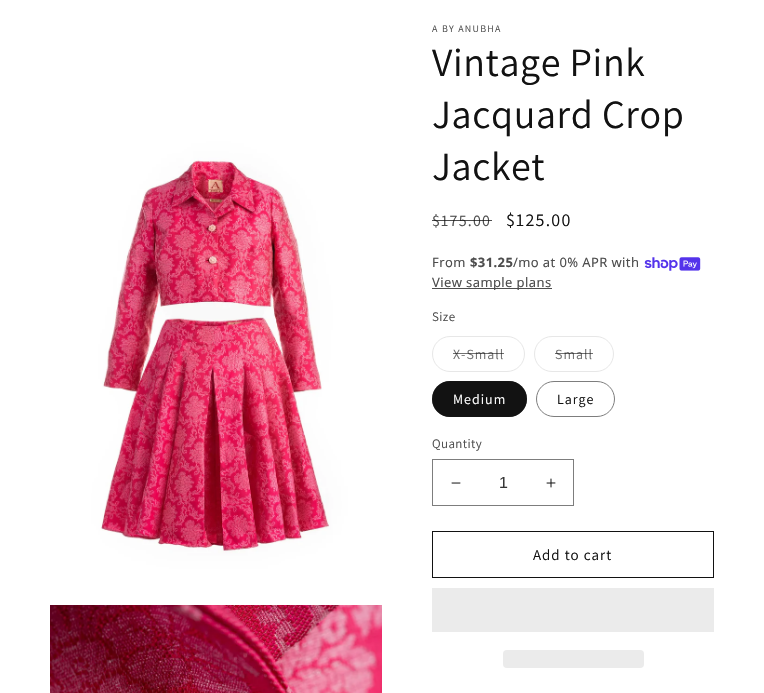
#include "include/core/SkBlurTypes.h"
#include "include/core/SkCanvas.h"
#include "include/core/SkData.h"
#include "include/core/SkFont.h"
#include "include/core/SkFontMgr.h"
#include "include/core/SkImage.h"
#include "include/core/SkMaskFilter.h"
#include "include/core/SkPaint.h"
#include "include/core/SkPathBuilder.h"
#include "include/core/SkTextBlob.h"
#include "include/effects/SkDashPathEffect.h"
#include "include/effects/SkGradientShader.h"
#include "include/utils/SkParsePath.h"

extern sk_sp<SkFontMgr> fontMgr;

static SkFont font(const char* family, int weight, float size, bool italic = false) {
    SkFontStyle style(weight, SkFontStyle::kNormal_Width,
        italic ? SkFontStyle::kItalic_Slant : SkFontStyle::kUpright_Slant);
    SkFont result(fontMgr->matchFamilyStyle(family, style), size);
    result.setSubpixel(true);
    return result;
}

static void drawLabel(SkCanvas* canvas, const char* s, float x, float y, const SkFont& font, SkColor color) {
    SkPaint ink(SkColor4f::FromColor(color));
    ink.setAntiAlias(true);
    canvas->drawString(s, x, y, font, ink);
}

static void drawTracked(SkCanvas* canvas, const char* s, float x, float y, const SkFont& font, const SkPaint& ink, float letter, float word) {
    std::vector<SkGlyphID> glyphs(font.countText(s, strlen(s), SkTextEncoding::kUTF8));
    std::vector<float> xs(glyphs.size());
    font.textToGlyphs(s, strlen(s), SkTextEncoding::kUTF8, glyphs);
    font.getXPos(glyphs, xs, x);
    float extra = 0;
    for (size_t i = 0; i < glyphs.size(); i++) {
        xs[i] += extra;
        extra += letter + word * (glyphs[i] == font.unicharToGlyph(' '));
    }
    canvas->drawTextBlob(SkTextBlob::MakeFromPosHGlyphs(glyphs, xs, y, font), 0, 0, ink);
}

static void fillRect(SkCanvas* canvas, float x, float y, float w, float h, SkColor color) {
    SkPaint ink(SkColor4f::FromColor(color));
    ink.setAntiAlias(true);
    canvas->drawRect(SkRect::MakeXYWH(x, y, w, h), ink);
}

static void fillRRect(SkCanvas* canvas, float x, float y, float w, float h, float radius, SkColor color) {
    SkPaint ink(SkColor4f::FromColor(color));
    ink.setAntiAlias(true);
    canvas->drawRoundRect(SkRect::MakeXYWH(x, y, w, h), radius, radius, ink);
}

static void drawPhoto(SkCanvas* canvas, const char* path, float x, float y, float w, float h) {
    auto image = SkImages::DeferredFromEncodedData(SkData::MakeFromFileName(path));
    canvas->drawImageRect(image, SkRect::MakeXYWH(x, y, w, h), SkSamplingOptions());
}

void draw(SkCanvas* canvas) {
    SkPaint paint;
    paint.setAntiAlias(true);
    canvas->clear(0xFFFFFFFF);
    drawPhoto(canvas, "assets/img1.png", 50, 99, 332, 498);
    drawPhoto(canvas, "assets/img2.png", 50, 605, 332, 88);
    SkFont font1 = font("Assistant", 400, 10);
    paint.setColor(0xFF4D4D4D);
    drawTracked(canvas, "A BY ANUBHA", 432, 32, font1, paint, 1.25f, 0);
    SkFont font2 = font("Assistant", 400, 40);
    paint.setColor(0xFF121212);
    drawTracked(canvas, "Vintage Pink", 432, 76, font2, paint, 0.6f, 0);
    drawTracked(canvas, "Jacquard Crop", 432, 128, font2, paint, 0.6f, 0);
    drawTracked(canvas, "Jacket", 432, 180, font2, paint, 0.6f, 0);
    SkFont font3 = font("Assistant", 400, 16);
    paint.setColor(0xFF4D4D4D);
    drawTracked(canvas, "$175.00", 432, 226, font3, paint, 1.25f, 0);
    fillRect(canvas, 432, 220, 60, 1, 0xBF121212);
    SkFont font4 = font("Assistant", 400, 18);
    paint.setColor(0xFF121212);
    drawTracked(canvas, "$125.00", 506, 226, font4, paint, 1.25f, 0);
    SkFont font5 = font("Noto Sans", 400, 13);
    paint.setColor(0xFF4D4D4D);
    drawTracked(canvas, "From", 432, 267, font5, paint, 0.4f, 0);
    SkFont font6 = font("Noto Sans", 700, 13);
    drawTracked(canvas, "$31.25", 470, 267, font6, paint, 0.4f, 0);
    drawTracked(canvas, "/mo at 0% APR with", 513, 267, font5, paint, 0.4f, 0);
    drawPhoto(canvas, "assets/img3.png", 644, 257, 57, 14);
    fillRect(canvas, 432, 288, 120, 1, 0xFF4D4D4D);
    drawTracked(canvas, "View sample plans", 432, 287, font5, paint, 0.4f, 0);
    SkFont font7 = font("Assistant", 400, 13);
    drawTracked(canvas, "Size", 432, 321, font7, paint, 0.4f, 0);
    paint.setStroke(true);
    paint.setStrokeWidth(1);
    paint.setColor(0xFFE7E7E7);
    canvas->drawRoundRect(SkRect::MakeXYWH(432.5f, 336.5f, 92, 35), 17.5f, 17.5f, paint);
    SkFont font8 = font("Assistant", 400, 14);
    paint.setStroke(false);
    paint.setColor(0xFF717171);
    drawTracked(canvas, "X-Small", 453, 359, font8, paint, 1, 0);
    fillRect(canvas, 453, 353, 51, 1, 0x99121212);
    paint.setStroke(true);
    paint.setColor(0xFFE7E7E7);
    canvas->drawRoundRect(SkRect::MakeXYWH(534.5f, 336.5f, 79, 35), 17.5f, 17.5f, paint);
    paint.setStroke(false);
    paint.setColor(0xFF717171);
    drawTracked(canvas, "Small", 555, 359, font8, paint, 1, 0);
    fillRect(canvas, 555, 353, 38, 1, 0x99121212);
    fillRRect(canvas, 432, 381, 95, 36, 18, 0xFF121212);
    paint.setStroke(true);
    paint.setColor(0x8C121212);
    canvas->drawRoundRect(SkRect::MakeXYWH(432.5f, 381.5f, 94, 35), 17.5f, 17.5f, paint);
    paint.setStroke(false);
    paint.setColor(0xFFFFFFFF);
    drawTracked(canvas, "Medium", 453, 404, font8, paint, 1, 0);
    paint.setStroke(true);
    paint.setColor(0xFF7D7D7D);
    canvas->drawRoundRect(SkRect::MakeXYWH(536.5f, 381.5f, 78, 35), 17.5f, 17.5f, paint);
    paint.setStroke(false);
    paint.setColor(0xFF121212);
    drawTracked(canvas, "Large", 557, 404, font8, paint, 1, 0);
    paint.setColor(0xFF4D4D4D);
    drawTracked(canvas, "Quantity", 432, 448, font7, paint, 0.4f, 0);
    drawPhoto(canvas, "assets/img4.png", 451, 482, 10, 2);
    drawPhoto(canvas, "assets/img5.png", 546, 478, 10, 10);
    paint.setStroke(true);
    paint.setColor(0xFF7D7D7D);
    canvas->drawRect(SkRect::MakeXYWH(432.5f, 459.5f, 141, 46), paint);
    SkFont font9 = font("Liberation Sans", 400, 16);
    drawLabel(canvas, "1", 499, 488, font9, 0xFF363636);
    paint.setColor(0xFF121212);
    canvas->drawRect(SkRect::MakeXYWH(432.5f, 531.5f, 281, 46), paint);
    SkFont font10 = font("Assistant", 400, 15);
    paint.setStroke(false);
    drawTracked(canvas, "Add to cart", 533, 560, font10, paint, 1, 0);
    fillRect(canvas, 432, 588, 282, 44, 0xFFEBEBEB);
    fillRRect(canvas, 503, 650, 141, 18, 4, 0xFFEBEBEB);
}
